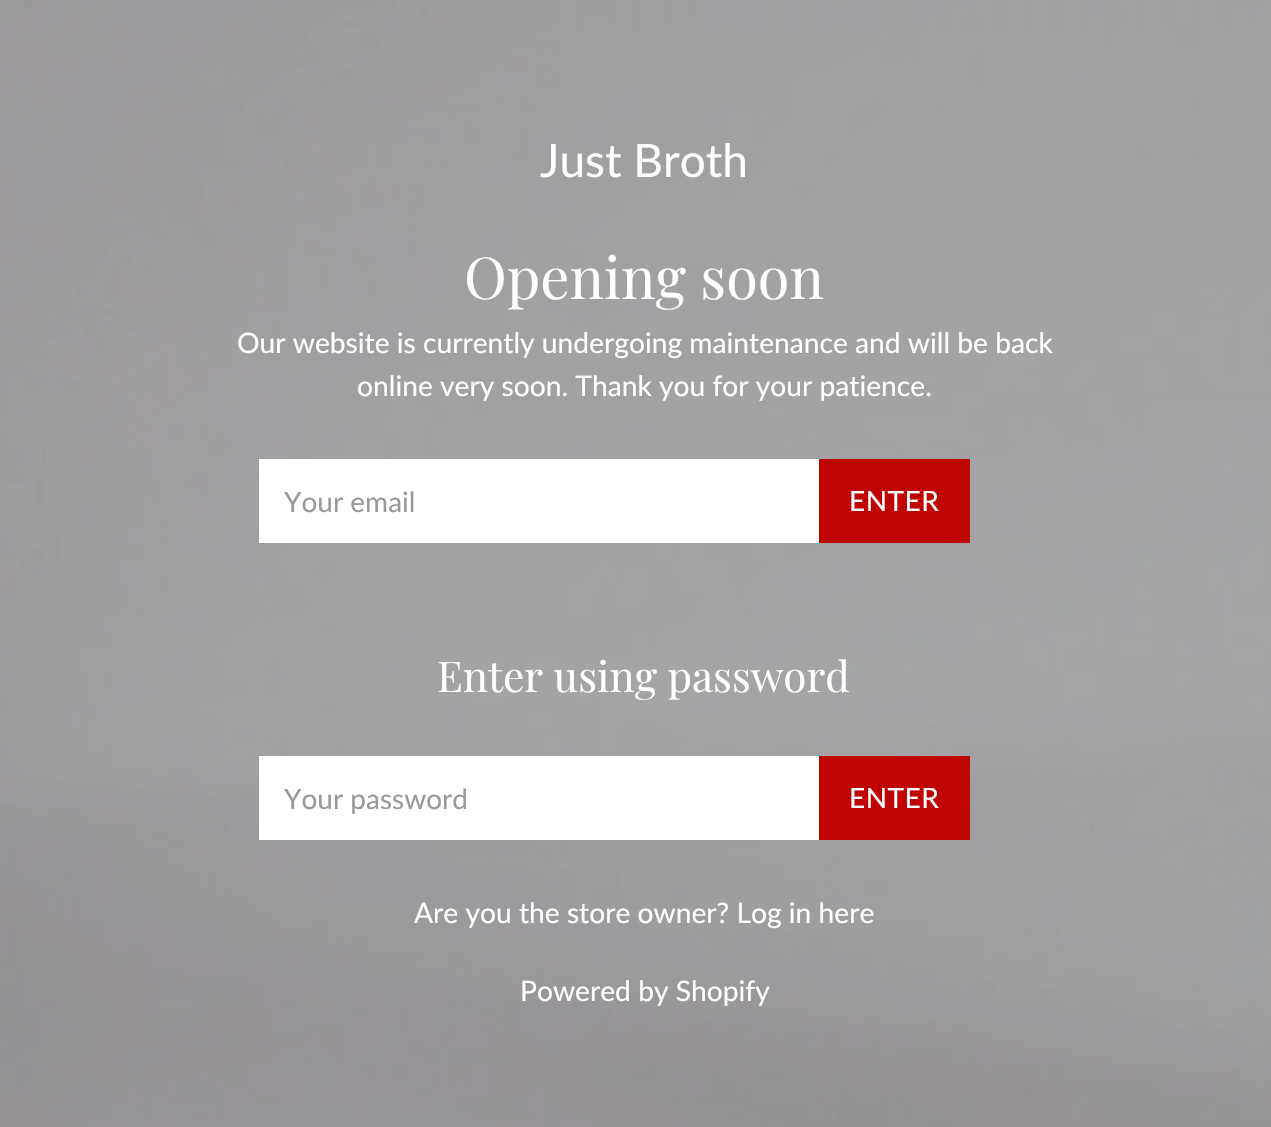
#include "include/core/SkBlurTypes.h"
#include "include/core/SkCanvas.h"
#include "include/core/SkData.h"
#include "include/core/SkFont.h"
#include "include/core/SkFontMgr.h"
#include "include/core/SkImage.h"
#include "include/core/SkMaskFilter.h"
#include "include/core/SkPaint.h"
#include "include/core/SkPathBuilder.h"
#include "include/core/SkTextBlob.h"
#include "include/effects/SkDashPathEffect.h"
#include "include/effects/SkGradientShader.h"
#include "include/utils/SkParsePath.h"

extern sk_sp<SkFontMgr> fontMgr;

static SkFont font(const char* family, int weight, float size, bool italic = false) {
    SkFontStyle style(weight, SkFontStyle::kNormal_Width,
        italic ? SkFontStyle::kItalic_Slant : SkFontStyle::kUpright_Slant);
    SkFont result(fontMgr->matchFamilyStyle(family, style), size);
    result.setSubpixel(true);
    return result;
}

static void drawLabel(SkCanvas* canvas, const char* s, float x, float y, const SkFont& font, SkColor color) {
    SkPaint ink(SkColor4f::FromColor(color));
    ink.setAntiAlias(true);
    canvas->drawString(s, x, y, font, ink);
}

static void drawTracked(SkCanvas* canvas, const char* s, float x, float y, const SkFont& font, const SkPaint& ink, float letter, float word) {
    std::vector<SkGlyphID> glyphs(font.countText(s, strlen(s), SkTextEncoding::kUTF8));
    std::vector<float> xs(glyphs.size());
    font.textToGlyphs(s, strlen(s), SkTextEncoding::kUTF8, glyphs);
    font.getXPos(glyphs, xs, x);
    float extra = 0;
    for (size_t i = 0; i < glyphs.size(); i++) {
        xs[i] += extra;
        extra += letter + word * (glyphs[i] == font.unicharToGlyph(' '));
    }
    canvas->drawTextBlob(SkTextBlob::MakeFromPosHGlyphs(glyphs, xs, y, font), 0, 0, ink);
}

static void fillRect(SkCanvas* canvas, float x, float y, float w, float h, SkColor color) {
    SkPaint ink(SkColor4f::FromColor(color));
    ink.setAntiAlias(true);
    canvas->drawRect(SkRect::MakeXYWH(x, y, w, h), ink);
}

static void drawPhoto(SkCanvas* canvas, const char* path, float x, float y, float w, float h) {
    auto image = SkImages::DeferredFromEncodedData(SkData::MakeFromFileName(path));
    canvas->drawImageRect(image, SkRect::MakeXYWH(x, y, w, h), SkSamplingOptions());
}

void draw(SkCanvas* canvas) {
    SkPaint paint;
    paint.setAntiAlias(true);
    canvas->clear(0xFFFFFFFF);
    drawPhoto(canvas, "assets/img1.png", 0, 0, 1271, 1127);
    SkFont font1 = font("Lato", 400, 46);
    drawLabel(canvas, "Just Broth", 540, 177, font1, 0xFFFFFFFF);
    SkFont font2 = font("Playfair Display", 400, 57.75f);
    drawLabel(canvas, "Opening soon", 464, 299, font2, 0xFFFFFFFF);
    SkFont font3 = font("Lato", 400, 28.2f);
    drawLabel(canvas, "Our website is currently undergoing maintenance and will be back", 237, 353, font3, 0xFFFFFFFF);
    drawLabel(canvas, "online very soon. Thank you for your patience.", 357, 396, font3, 0xFFFFFFFF);
    fillRect(canvas, 259, 459, 560, 84, 0xFFFFFFFF);
    SkFont font4 = font("Lato", 400, 28);
    drawLabel(canvas, "Your email", 284, 512, font4, 0xFF999999);
    fillRect(canvas, 819, 459, 151, 84, 0xFFBF0404);
    paint.setColor(0xFFFFFFFF);
    drawTracked(canvas, "ENTER", 849, 511, font4, paint, 0.5f, 0);
    SkFont font5 = font("Playfair Display", 400, 42.25f);
    drawLabel(canvas, "Enter using password", 437, 692, font5, 0xFFFFFFFF);
    fillRect(canvas, 259, 756, 560, 84, 0xFFFFFFFF);
    drawLabel(canvas, "Your password", 284, 809, font4, 0xFF999999);
    fillRect(canvas, 819, 756, 151, 84, 0xFFBF0404);
    drawTracked(canvas, "ENTER", 849, 808, font4, paint, 0.5f, 0);
    drawLabel(canvas, "Are you the store owner? Log in here", 414, 923, font3, 0xFFFFFFFF);
    drawLabel(canvas, "Powered by Shopify", 520, 1001, font3, 0xFFFFFFFF);
}
